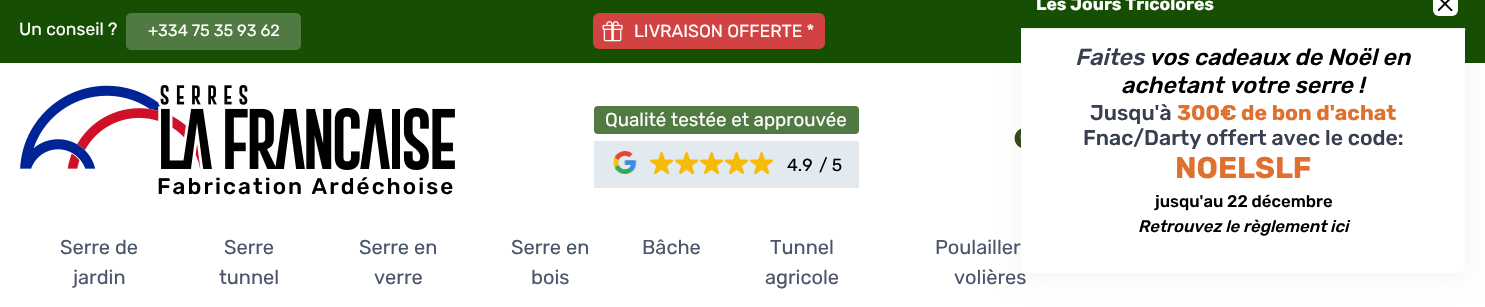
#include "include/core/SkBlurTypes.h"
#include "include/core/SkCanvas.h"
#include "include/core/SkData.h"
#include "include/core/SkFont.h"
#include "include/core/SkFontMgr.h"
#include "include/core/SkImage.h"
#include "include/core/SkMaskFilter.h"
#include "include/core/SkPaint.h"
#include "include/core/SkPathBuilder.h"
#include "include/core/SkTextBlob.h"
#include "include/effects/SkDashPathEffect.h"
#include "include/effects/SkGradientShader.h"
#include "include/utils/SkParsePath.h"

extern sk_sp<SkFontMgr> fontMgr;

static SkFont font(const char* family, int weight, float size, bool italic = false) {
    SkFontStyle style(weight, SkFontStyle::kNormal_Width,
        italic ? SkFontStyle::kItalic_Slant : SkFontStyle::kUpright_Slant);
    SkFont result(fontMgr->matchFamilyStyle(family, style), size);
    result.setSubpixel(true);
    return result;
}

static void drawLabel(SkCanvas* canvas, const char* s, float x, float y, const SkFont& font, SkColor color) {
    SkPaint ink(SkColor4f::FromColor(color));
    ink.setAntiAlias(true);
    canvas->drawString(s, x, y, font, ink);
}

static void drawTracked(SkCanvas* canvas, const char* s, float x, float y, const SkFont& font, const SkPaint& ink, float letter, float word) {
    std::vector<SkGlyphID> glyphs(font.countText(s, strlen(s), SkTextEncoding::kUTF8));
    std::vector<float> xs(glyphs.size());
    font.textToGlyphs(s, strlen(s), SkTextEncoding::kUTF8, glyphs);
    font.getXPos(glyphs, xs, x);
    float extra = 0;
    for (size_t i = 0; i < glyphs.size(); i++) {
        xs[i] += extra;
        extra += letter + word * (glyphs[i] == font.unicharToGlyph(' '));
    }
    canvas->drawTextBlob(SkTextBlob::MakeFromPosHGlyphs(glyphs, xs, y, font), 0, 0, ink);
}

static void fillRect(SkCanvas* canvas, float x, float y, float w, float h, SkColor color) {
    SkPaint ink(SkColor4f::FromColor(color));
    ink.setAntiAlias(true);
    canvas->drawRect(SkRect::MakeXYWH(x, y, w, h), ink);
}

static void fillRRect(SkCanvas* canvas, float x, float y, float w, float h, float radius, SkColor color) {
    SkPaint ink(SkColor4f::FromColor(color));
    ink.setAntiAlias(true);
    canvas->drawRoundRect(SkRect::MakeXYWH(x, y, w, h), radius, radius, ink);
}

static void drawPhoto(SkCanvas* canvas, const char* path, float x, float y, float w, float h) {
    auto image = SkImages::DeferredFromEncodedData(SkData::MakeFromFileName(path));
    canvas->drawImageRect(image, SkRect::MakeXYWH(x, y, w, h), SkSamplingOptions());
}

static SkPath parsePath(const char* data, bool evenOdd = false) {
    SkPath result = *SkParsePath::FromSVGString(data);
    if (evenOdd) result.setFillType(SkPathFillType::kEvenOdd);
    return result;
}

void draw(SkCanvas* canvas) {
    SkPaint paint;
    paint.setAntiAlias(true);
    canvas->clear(0xFFFFFFFF);
    fillRect(canvas, 0, 0, 1485, 63, 0xFF164E03);
    SkFont font1 = font("Rubik", 400, 17.5f);
    drawLabel(canvas, "Un conseil ?", 19, 35, font1, 0xFFFFFFFF);
    fillRRect(canvas, 126, 13, 175, 37, 5, 0xFF507A42);
    SkFont font2 = font("Rubik", 400, 16.25f);
    drawLabel(canvas, "+334 75 35 93 62", 148, 36, font2, 0xFFFFFFFF);
    fillRRect(canvas, 593, 13, 232, 36, 6, 0xFFD34242);
    drawPhoto(canvas, "assets/img1.png", 602, 21, 21, 21);
    drawLabel(canvas, "LIVRAISON OFFERTE *", 634, 37, font1, 0xFFFFFFFF);
    paint.setColor(0xFFFFFFFF);
    canvas->drawPath(parsePath("M1456 29H1466L1461 34Z"), paint);
    fillRRect(canvas, 594, 106, 265, 28, 4, 0xFF507A42);
    SkFont font3 = font("Rubik", 400, 18.75f);
    drawLabel(canvas, "Qualité testée et approuvée", 605, 126, font3, 0xFFFFFFFF);
    fillRect(canvas, 594, 141, 265, 47, 0xFFE2E9EF);
    drawPhoto(canvas, "assets/img2.png", 613, 151, 24, 23);
    drawPhoto(canvas, "assets/img3.png", 650, 152, 24, 23);
    drawPhoto(canvas, "assets/img3.png", 675, 152, 24, 23);
    drawPhoto(canvas, "assets/img3.png", 700, 152, 24, 23);
    drawPhoto(canvas, "assets/img3.png", 725, 152, 24, 23);
    drawPhoto(canvas, "assets/img3.png", 750, 152, 24, 23);
    drawLabel(canvas, "4.9", 787, 171, font1, 0xFF000000);
    drawLabel(canvas, "/ 5", 819, 171, font1, 0xFF000000);
    drawPhoto(canvas, "assets/img4.png", 1014, 128, 7, 20);
    drawPhoto(canvas, "assets/img5.png", 20, 85, 435, 85);
    SkFont font4 = font("Rubik", 500, 22.5f);
    paint.setColor(0xFF000000);
    drawTracked(canvas, "Fabrication Ardéchoise", 157, 194, font4, paint, 2.1f, 0);
    SkFont font5 = font("Rubik", 400, 20);
    drawLabel(canvas, "Serre de", 60, 254, font5, 0xFF4B566B);
    drawLabel(canvas, "jardin", 73, 284, font5, 0xFF4B566B);
    drawLabel(canvas, "Serre", 224, 254, font5, 0xFF4B566B);
    drawLabel(canvas, "tunnel", 219, 284, font5, 0xFF4B566B);
    drawLabel(canvas, "Serre en", 359, 254, font5, 0xFF4B566B);
    drawLabel(canvas, "verre", 374, 284, font5, 0xFF4B566B);
    drawLabel(canvas, "Serre en", 511, 254, font5, 0xFF4B566B);
    drawLabel(canvas, "bois", 531, 284, font5, 0xFF4B566B);
    drawLabel(canvas, "Bâche", 642, 254, font5, 0xFF4B566B);
    drawLabel(canvas, "Tunnel", 770, 254, font5, 0xFF4B566B);
    drawLabel(canvas, "agricole", 765, 284, font5, 0xFF4B566B);
    drawLabel(canvas, "Poulailler", 935, 254, font5, 0xFF4B566B);
    drawLabel(canvas, "volières", 954, 284, font5, 0xFF4B566B);
    paint.setColor(0x0D000000);
    paint.setMaskFilter(SkMaskFilter::MakeBlur(kNormal_SkBlurStyle, 12.5f));
    canvas->drawRoundRect(SkRect::MakeXYWH(1023, -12, 441, 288), 5, 5, paint);
    paint.setMaskFilter(nullptr);
    fillRRect(canvas, 1021, -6, 444, 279, 6, 0xFFFFFFFF);
    fillRect(canvas, 1021, 0, 444, 28, 0xFF164E03);
    fillRect(canvas, 1021, 28, 444, 1, 0xFFEAEFF3);
    SkFont font6 = font("Rubik", 700, 17.5f);
    drawLabel(canvas, "Les Jours Tricolores", 1036, 10, font6, 0xFFFFFFFF);
    fillRRect(canvas, 1433, -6, 25, 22, 6, 0xFFFFFFFF);
    drawPhoto(canvas, "assets/img6.png", 1438, 0, 15, 11);
    SkFont font7 = font("Rubik", 500, 23.25f, true);
    drawLabel(canvas, "Faites", 1075, 65, font7, 0xFF373F50);
    drawLabel(canvas, "vos cadeaux de Noël en", 1149, 65, font7, 0xFF000000);
    drawLabel(canvas, "achetant votre serre !", 1121, 93, font7, 0xFF000000);
    SkFont font8 = font("Rubik", 500, 21.25f);
    drawLabel(canvas, "Jusqu'à", 1090, 120, font8, 0xFF373F50);
    SkFont font9 = font("Rubik", 700, 21.25f);
    drawLabel(canvas, "300€ de bon d'achat", 1177, 120, font9, 0xFFE0702E);
    drawLabel(canvas, "Fnac/Darty offert avec le code:", 1083, 145, font8, 0xFF373F50);
    SkFont font10 = font("Rubik", 700, 30);
    drawLabel(canvas, "NOELSLF", 1175, 178, font10, 0xFFE0702E);
    SkFont font11 = font("Rubik", 500, 16.7f);
    drawLabel(canvas, "jusqu'au 22 décembre", 1155, 207, font11, 0xFF000000);
    SkFont font12 = font("Rubik", 500, 16.7f, true);
    drawLabel(canvas, "Retrouvez le règlement ici", 1138, 232, font12, 0xFF000000);
}
